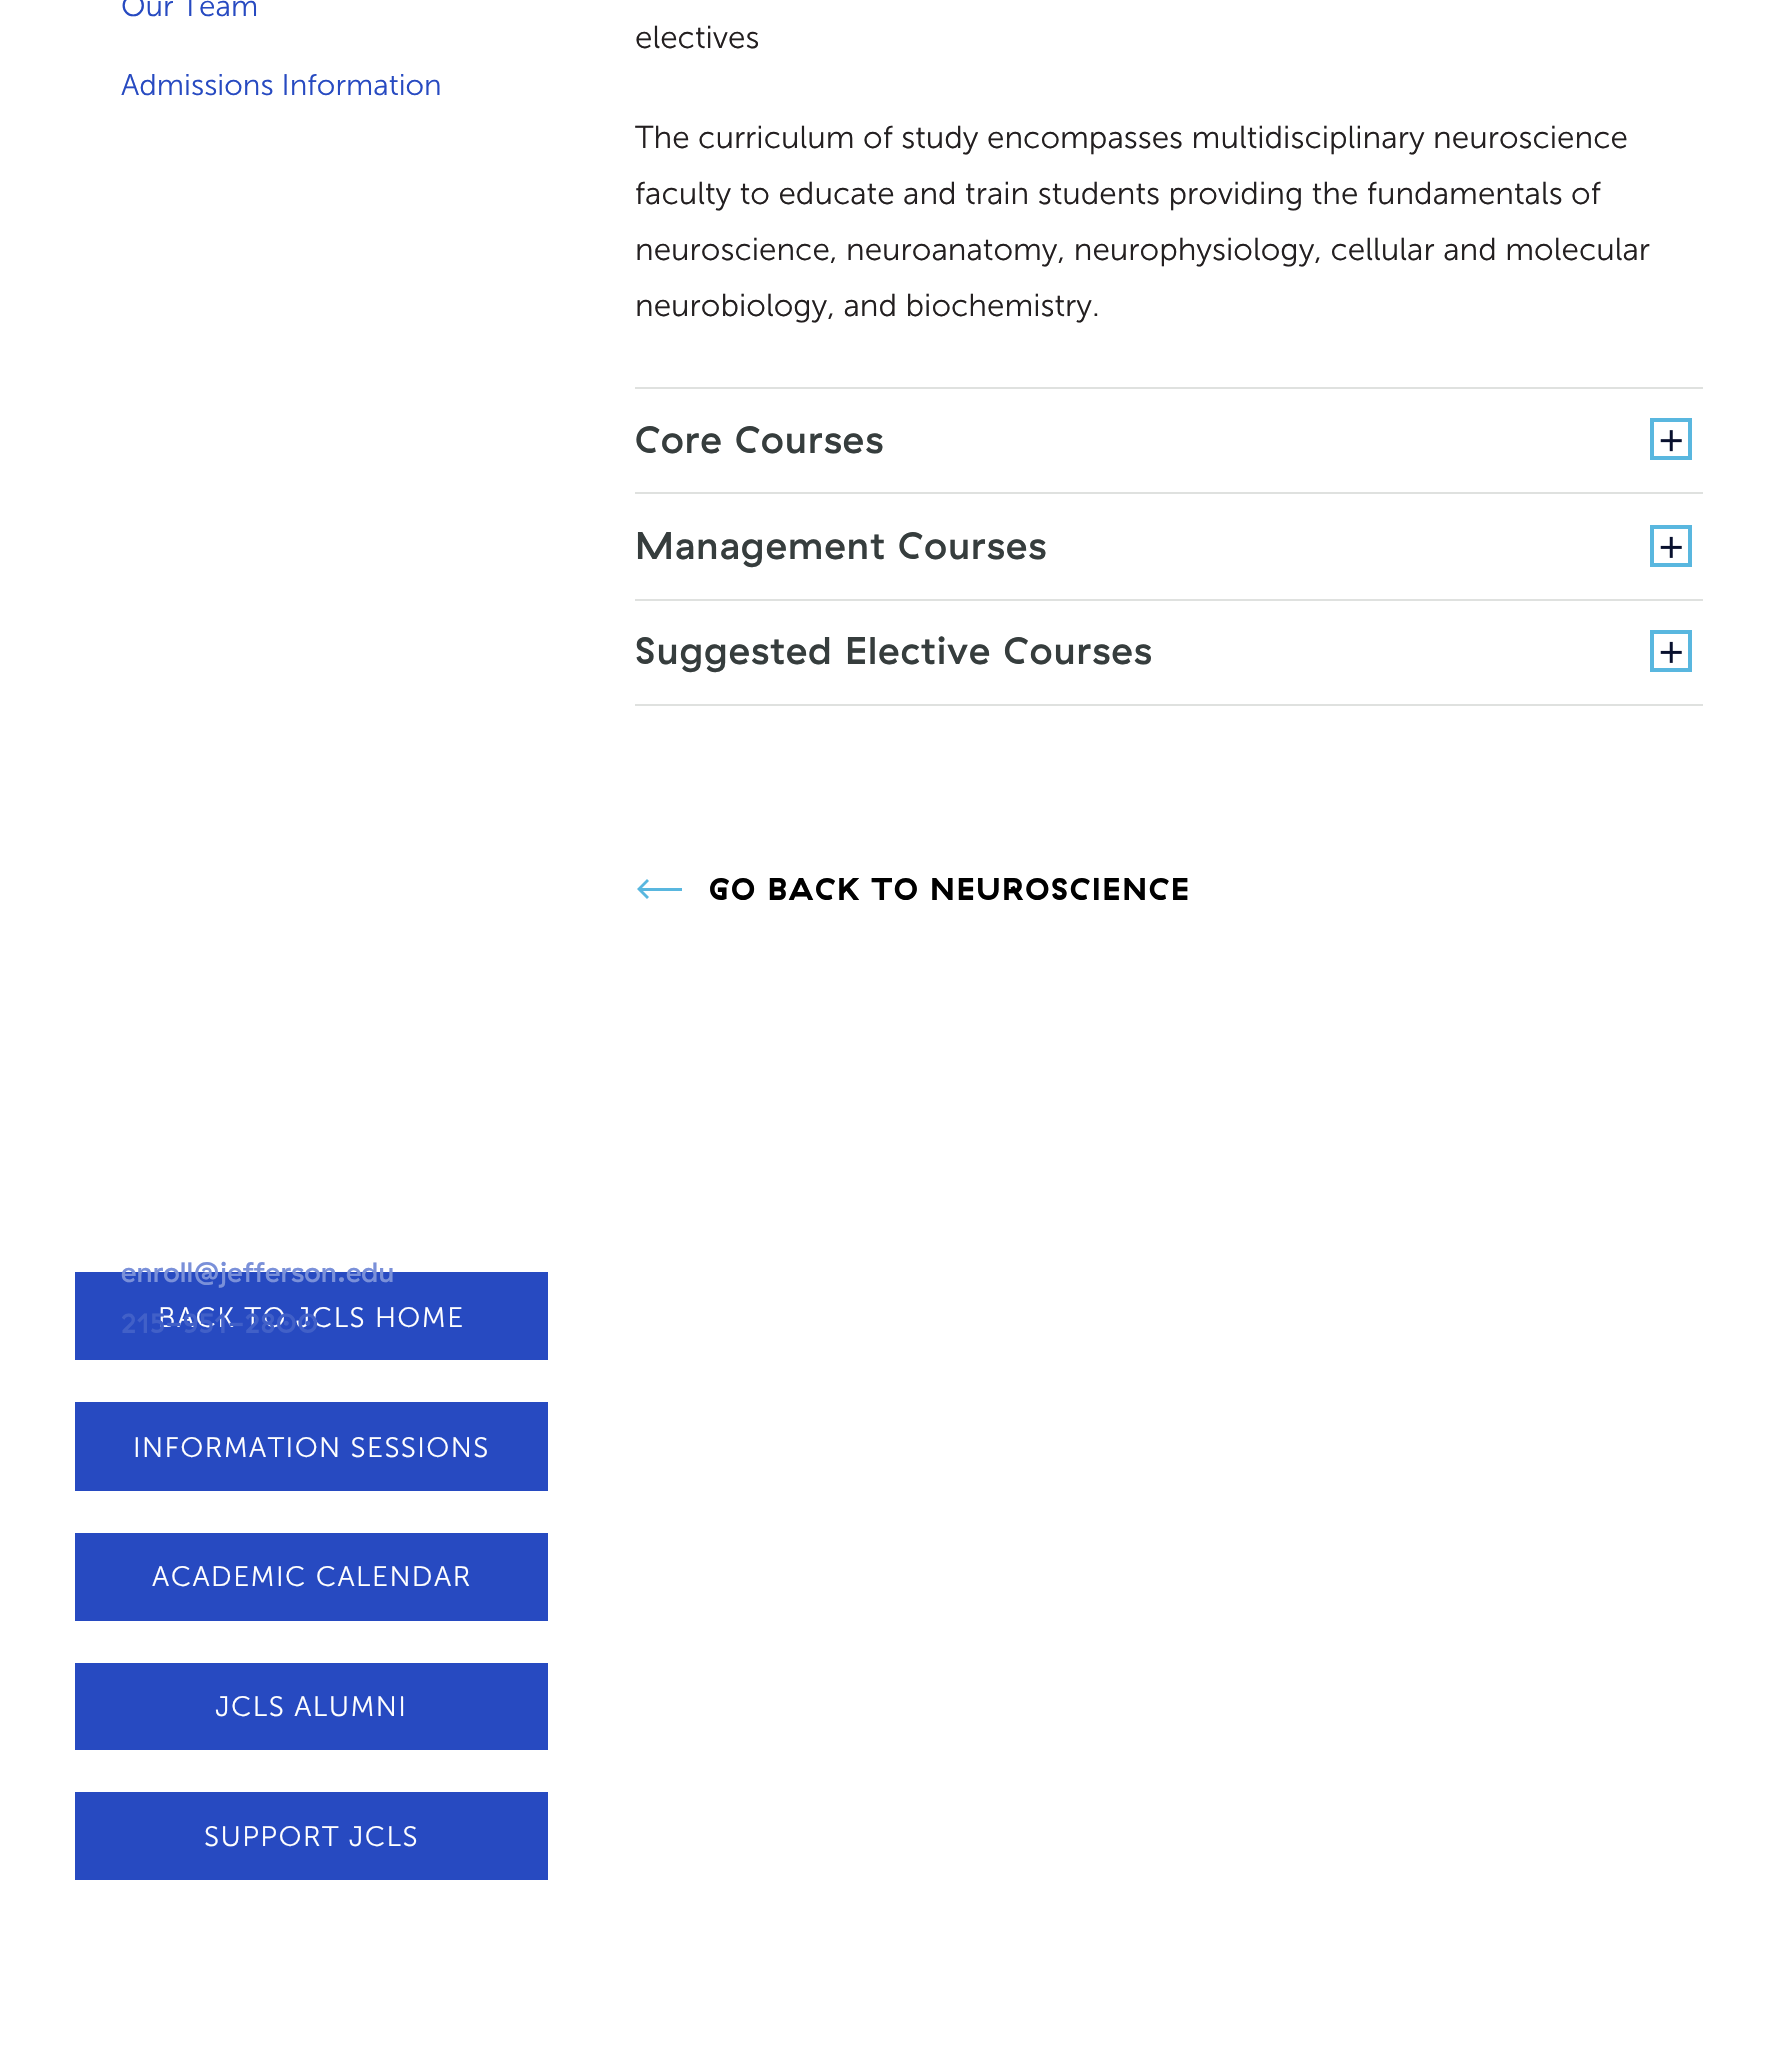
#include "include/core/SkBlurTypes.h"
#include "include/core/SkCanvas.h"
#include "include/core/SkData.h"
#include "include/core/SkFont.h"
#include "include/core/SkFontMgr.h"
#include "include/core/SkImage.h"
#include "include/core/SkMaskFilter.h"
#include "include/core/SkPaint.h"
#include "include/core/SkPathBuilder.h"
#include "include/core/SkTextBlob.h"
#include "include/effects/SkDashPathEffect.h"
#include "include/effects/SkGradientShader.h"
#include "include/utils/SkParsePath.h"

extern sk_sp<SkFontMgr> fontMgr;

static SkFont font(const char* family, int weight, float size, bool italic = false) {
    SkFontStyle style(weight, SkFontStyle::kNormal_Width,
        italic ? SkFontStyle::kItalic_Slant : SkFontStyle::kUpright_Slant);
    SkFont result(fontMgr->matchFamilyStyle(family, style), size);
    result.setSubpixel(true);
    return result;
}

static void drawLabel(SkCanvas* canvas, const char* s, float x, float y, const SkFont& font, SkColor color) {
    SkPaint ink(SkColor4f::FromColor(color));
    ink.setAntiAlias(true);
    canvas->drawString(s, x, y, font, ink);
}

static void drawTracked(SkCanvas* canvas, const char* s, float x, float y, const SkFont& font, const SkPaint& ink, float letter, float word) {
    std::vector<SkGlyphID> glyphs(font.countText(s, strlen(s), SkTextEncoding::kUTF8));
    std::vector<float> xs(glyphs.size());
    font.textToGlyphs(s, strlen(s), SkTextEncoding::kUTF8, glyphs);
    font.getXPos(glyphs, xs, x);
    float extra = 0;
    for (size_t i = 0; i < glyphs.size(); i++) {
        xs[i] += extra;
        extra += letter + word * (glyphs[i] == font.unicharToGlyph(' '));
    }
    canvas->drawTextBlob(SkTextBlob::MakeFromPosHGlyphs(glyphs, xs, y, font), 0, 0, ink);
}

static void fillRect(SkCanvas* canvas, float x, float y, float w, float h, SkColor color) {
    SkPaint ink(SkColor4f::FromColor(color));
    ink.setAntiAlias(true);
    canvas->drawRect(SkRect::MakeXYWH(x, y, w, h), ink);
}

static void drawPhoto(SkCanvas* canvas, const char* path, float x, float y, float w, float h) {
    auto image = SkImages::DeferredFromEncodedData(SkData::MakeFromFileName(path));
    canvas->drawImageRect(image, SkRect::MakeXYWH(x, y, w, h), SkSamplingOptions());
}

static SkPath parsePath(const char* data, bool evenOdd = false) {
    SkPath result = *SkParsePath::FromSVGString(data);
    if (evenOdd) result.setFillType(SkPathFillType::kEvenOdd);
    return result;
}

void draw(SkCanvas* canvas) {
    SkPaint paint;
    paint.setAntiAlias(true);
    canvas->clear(0xFFFFFFFF);
    SkFont font1 = font("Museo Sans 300", 300, 29.75f);
    drawLabel(canvas, "Our Team", 121, 16, font1, 0xFF274AC1);
    drawLabel(canvas, "Admissions Information", 121, 95, font1, 0xFF274AC1);
    {
        const SkColor colors[] = {0xFF152456, 0xFF274AC1};
        const float stops[] = {0, 0.4f};
        const SkPoint ends[] = {{-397, 1316}, {548, 1316}};
        paint.setShader(SkGradientShader::MakeLinear(ends, colors, stops, 2, SkTileMode::kClamp));
        paint.setAlpha(255);
    }
    canvas->drawRect(SkRect::MakeXYWH(75, 1272, 473, 88), paint);
    SkFont font2 = font("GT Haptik", 500, 28);
    drawLabel(canvas, "enroll@jefferson.edu", 121, 1282, font2, 0xFF7A90D9);
    SkFont font3 = font("Museo Sans 300", 300, 28);
    paint.setShader(nullptr);
    paint.setColor(0xFFFFFFFF);
    drawTracked(canvas, "BACK TO JCLS HOME", 158, 1327, font3, paint, 1.4f, 0);
    drawLabel(canvas, "215-951-2800", 121, 1333, font2, 0xFF4160C8);
    {
        const SkColor colors[] = {0xFF152456, 0xFF274AC1};
        const float stops[] = {0, 0.4f};
        const SkPoint ends[] = {{-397, 1446}, {548, 1446}};
        paint.setShader(SkGradientShader::MakeLinear(ends, colors, stops, 2, SkTileMode::kClamp));
        paint.setAlpha(255);
    }
    canvas->drawRect(SkRect::MakeXYWH(75, 1402, 473, 89), paint);
    paint.setShader(nullptr);
    paint.setColor(0xFFFFFFFF);
    drawTracked(canvas, "INFORMATION SESSIONS", 133, 1457, font3, paint, 1.4f, 0);
    {
        const SkColor colors[] = {0xFF152456, 0xFF274AC1};
        const float stops[] = {0, 0.4f};
        const SkPoint ends[] = {{-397, 1577}, {548, 1577}};
        paint.setShader(SkGradientShader::MakeLinear(ends, colors, stops, 2, SkTileMode::kClamp));
        paint.setAlpha(255);
    }
    canvas->drawRect(SkRect::MakeXYWH(75, 1533, 473, 88), paint);
    paint.setShader(nullptr);
    paint.setColor(0xFFFFFFFF);
    drawTracked(canvas, "ACADEMIC CALENDAR", 152, 1586, font3, paint, 1.4f, 0);
    {
        const SkColor colors[] = {0xFF152456, 0xFF274AC1};
        const float stops[] = {0, 0.4f};
        const SkPoint ends[] = {{-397, 1706}, {548, 1706}};
        paint.setShader(SkGradientShader::MakeLinear(ends, colors, stops, 2, SkTileMode::kClamp));
        paint.setAlpha(255);
    }
    canvas->drawRect(SkRect::MakeXYWH(75, 1663, 473, 87), paint);
    paint.setShader(nullptr);
    paint.setColor(0xFFFFFFFF);
    drawTracked(canvas, "JCLS ALUMNI", 215, 1716, font3, paint, 1.4f, 0);
    {
        const SkColor colors[] = {0xFF152456, 0xFF274AC1};
        const float stops[] = {0, 0.4f};
        const SkPoint ends[] = {{-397, 1836}, {548, 1836}};
        paint.setShader(SkGradientShader::MakeLinear(ends, colors, stops, 2, SkTileMode::kClamp));
        paint.setAlpha(255);
    }
    canvas->drawRect(SkRect::MakeXYWH(75, 1792, 473, 88), paint);
    paint.setShader(nullptr);
    paint.setColor(0xFFFFFFFF);
    drawTracked(canvas, "SUPPORT JCLS", 204, 1846, font3, paint, 1.4f, 0);
    SkFont font4 = font("Museo Sans 300", 300, 31.5f);
    drawLabel(canvas, "electives", 635, 48, font4, 0xFF231F20);
    drawLabel(canvas, "The curriculum of study encompasses multidisciplinary neuroscience", 635, 148, font4, 0xFF231F20);
    drawLabel(canvas, "faculty to educate and train students providing the fundamentals of", 635, 204, font4, 0xFF231F20);
    drawLabel(canvas, "neuroscience, neuroanatomy, neurophysiology, cellular and molecular", 635, 260, font4, 0xFF231F20);
    drawLabel(canvas, "neurobiology, and biochemistry.", 635, 316, font4, 0xFF231F20);
    fillRect(canvas, 635, 387, 1068, 2, 0xFFDFE1DF);
    fillRect(canvas, 635, 492, 1068, 2, 0xFFDFE1DF);
    SkFont font5 = font("GT Haptik", 500, 38.5f);
    paint.setColor(0xFF363D3D);
    drawTracked(canvas, "Core Courses", 635, 453, font5, paint, 1.1f, 0);
    paint.setStroke(true);
    paint.setStrokeWidth(4);
    paint.setColor(0xFF59B7DF);
    canvas->drawRect(SkRect::MakeXYWH(1652, 420, 38, 38), paint);
    drawPhoto(canvas, "assets/img1.png", 1660, 430, 22, 22);
    fillRect(canvas, 635, 599, 1068, 2, 0xFFDFE1DF);
    paint.setStroke(false);
    paint.setColor(0xFF363D3D);
    drawTracked(canvas, "Management Courses", 635, 559, font5, paint, 1.1f, 0);
    paint.setStroke(true);
    paint.setColor(0xFF59B7DF);
    canvas->drawRect(SkRect::MakeXYWH(1652, 527, 38, 38), paint);
    drawPhoto(canvas, "assets/img2.png", 1660, 536, 22, 22);
    fillRect(canvas, 635, 704, 1068, 2, 0xFFDFE1DF);
    paint.setStroke(false);
    paint.setColor(0xFF363D3D);
    drawTracked(canvas, "Suggested Elective Courses", 635, 664, font5, paint, 1.1f, 0);
    paint.setStroke(true);
    paint.setColor(0xFF59B7DF);
    canvas->drawRect(SkRect::MakeXYWH(1652, 632, 38, 38), paint);
    drawPhoto(canvas, "assets/img2.png", 1660, 641, 22, 22);
    paint.setStroke(false);
    canvas->drawPath(parsePath("M647 879L649 881L641 889L649 897L647 899L637 889ZM682 891H640V888H682Z"), paint);
    SkFont font6 = font("GT Haptik", 700, 31.5f);
    paint.setColor(0xFF000000);
    drawTracked(canvas, "GO BACK TO NEUROSCIENCE", 709, 900, font6, paint, 1.6f, 0);
}
